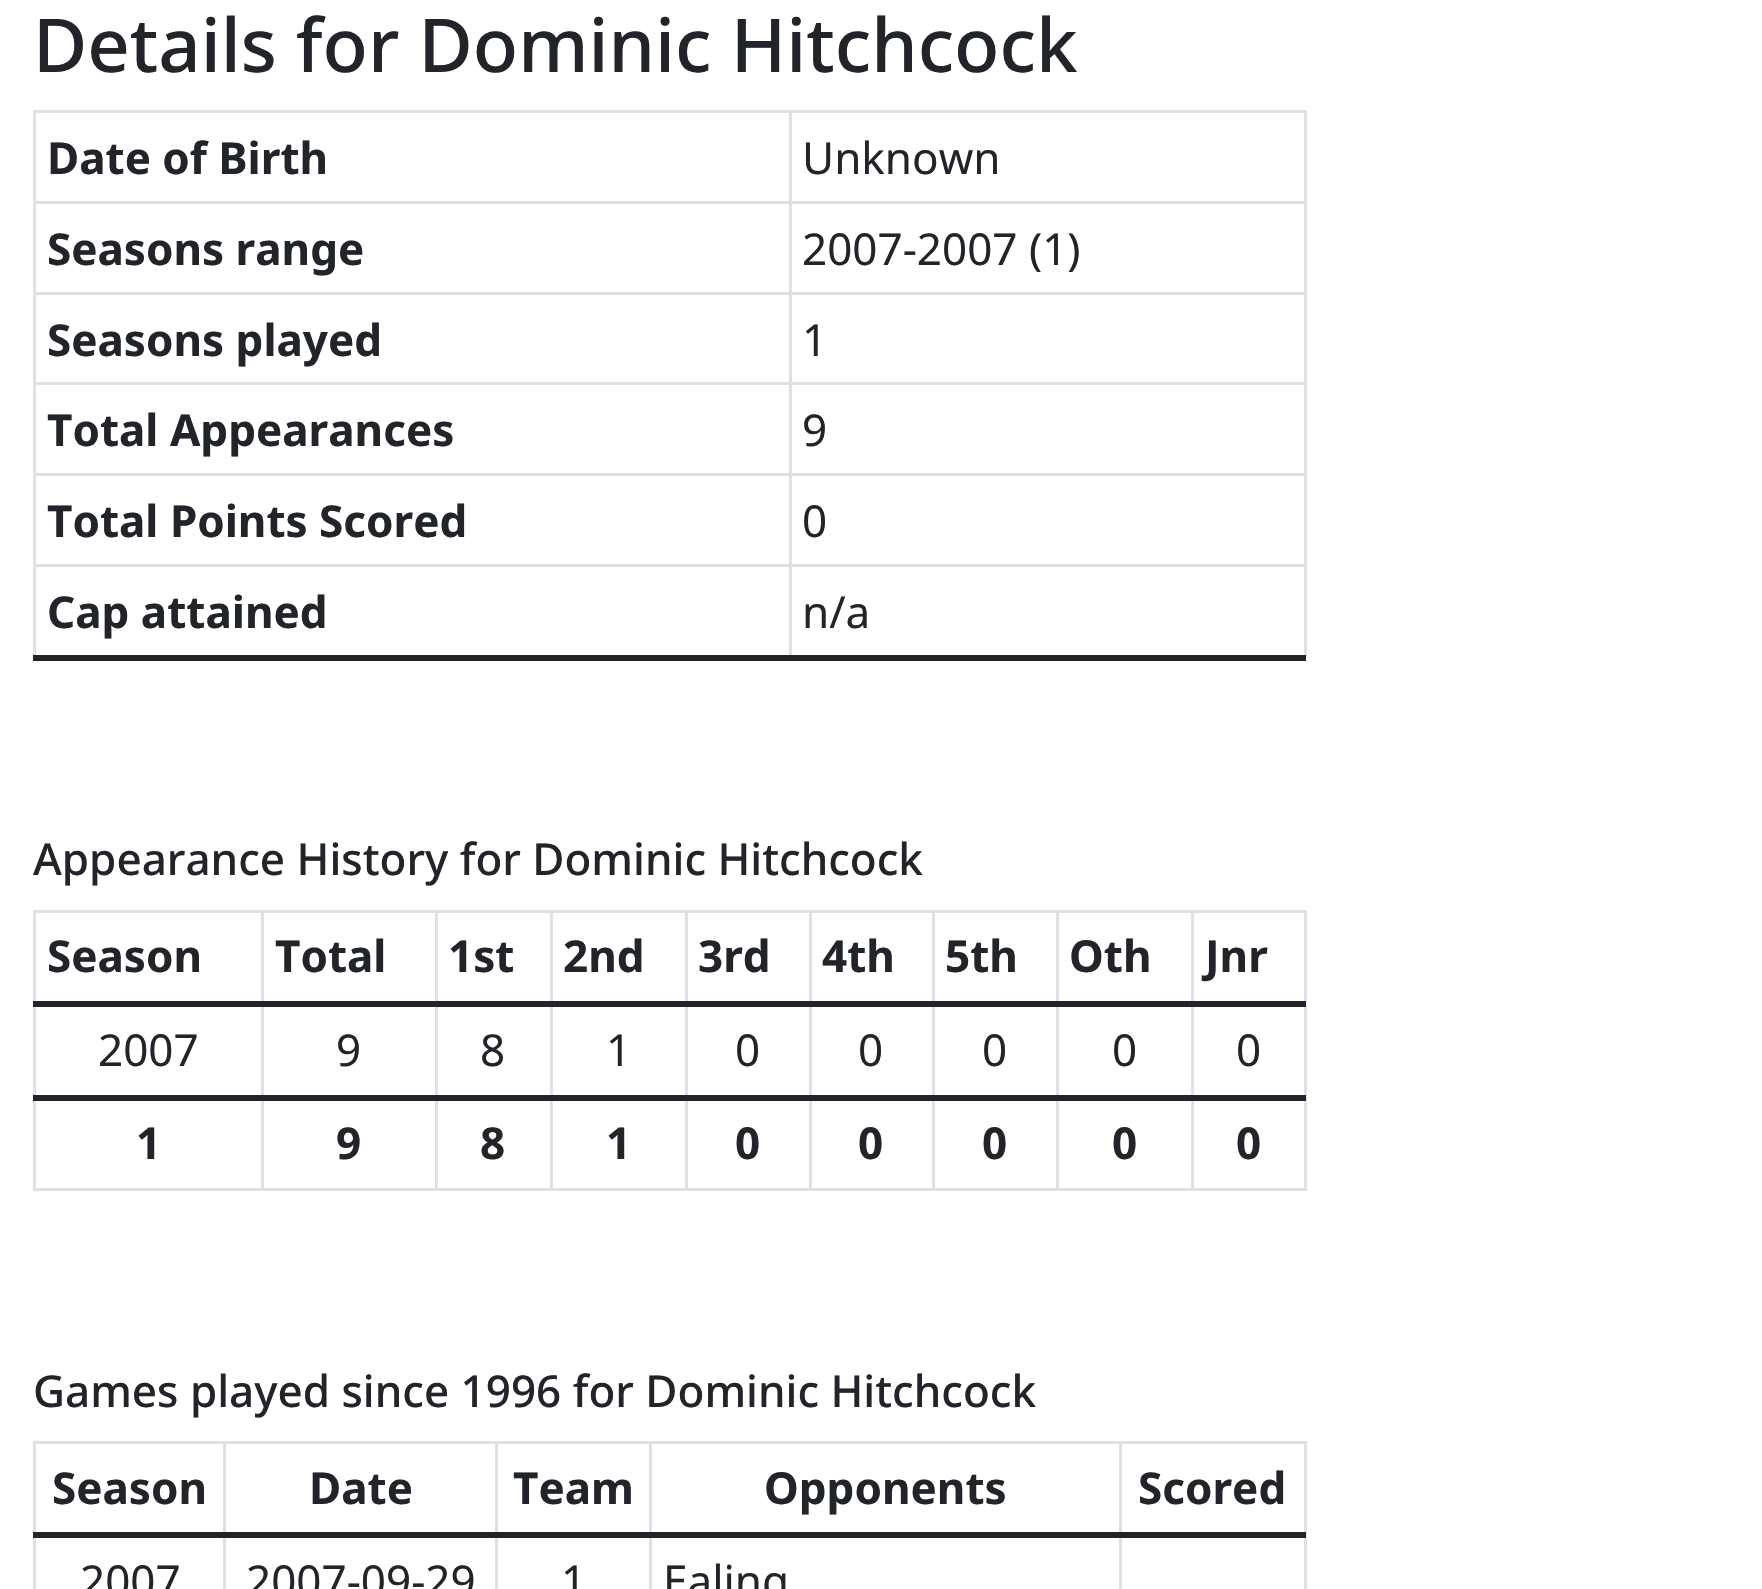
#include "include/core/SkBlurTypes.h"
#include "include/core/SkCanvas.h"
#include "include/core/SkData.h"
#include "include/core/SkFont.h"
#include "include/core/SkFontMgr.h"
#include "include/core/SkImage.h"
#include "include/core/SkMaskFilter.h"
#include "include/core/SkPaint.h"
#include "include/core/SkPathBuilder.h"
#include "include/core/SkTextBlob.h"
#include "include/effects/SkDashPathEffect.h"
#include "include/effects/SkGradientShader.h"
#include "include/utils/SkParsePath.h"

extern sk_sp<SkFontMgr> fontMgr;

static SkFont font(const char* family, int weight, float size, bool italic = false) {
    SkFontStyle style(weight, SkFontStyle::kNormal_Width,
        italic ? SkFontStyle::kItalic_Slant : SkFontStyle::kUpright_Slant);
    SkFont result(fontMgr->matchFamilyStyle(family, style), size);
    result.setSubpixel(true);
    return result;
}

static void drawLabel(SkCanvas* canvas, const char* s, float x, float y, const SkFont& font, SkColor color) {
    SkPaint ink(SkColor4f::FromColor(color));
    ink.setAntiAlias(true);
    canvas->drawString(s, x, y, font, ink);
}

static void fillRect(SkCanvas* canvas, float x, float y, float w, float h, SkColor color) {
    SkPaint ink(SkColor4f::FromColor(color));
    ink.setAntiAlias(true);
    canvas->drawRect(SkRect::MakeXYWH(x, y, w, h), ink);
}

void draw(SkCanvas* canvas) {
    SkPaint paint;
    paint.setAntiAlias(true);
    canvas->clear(0xFFFFFFFF);
    SkFont font1 = font("Noto Sans", 500, 74.2f);
    drawLabel(canvas, "Details for Dominic Hitchcock", 33, 72, font1, 0xFF212529);
    fillRect(canvas, 33, 110, 1273, 3, 0xFFDEE2E6);
    SkFont font2 = font("Noto Sans", 700, 44);
    drawLabel(canvas, "Date of Birth", 47, 174, font2, 0xFF212529);
    SkFont font3 = font("Noto Sans", 400, 44);
    drawLabel(canvas, "Unknown", 802, 174, font3, 0xFF212529);
    fillRect(canvas, 33, 201, 1273, 3, 0xFFDEE2E6);
    drawLabel(canvas, "Seasons range", 47, 265, font2, 0xFF212529);
    drawLabel(canvas, "2007-2007 (1)", 802, 265, font3, 0xFF212529);
    fillRect(canvas, 33, 292, 1273, 3, 0xFFDEE2E6);
    drawLabel(canvas, "Seasons played", 47, 356, font2, 0xFF212529);
    drawLabel(canvas, "1", 802, 356, font3, 0xFF212529);
    fillRect(canvas, 33, 382, 1273, 3, 0xFFDEE2E6);
    drawLabel(canvas, "Total Appearances", 47, 446, font2, 0xFF212529);
    drawLabel(canvas, "9", 802, 446, font3, 0xFF212529);
    fillRect(canvas, 33, 473, 1273, 3, 0xFFDEE2E6);
    drawLabel(canvas, "Total Points Scored", 47, 537, font2, 0xFF212529);
    drawLabel(canvas, "0", 802, 537, font3, 0xFF212529);
    fillRect(canvas, 33, 564, 1273, 3, 0xFFDEE2E6);
    fillRect(canvas, 33, 110, 3, 547, 0xFFDEE2E6);
    drawLabel(canvas, "Cap attained", 47, 628, font2, 0xFF212529);
    fillRect(canvas, 1304, 110, 3, 547, 0xFFDEE2E6);
    fillRect(canvas, 789, 110, 3, 547, 0xFFDEE2E6);
    drawLabel(canvas, "n/a", 802, 628, font3, 0xFF212529);
    fillRect(canvas, 33, 655, 1273, 6, 0xFF212529);
    SkFont font4 = font("Noto Sans", 500, 44);
    drawLabel(canvas, "Appearance History for Dominic Hitchcock", 33, 875, font4, 0xFF212529);
    fillRect(canvas, 33, 910, 1273, 3, 0xFFDEE2E6);
    drawLabel(canvas, "Season", 47, 972, font2, 0xFF212529);
    drawLabel(canvas, "Total", 275, 972, font2, 0xFF212529);
    drawLabel(canvas, "1st", 448, 972, font2, 0xFF212529);
    drawLabel(canvas, "2nd", 563, 972, font2, 0xFF212529);
    drawLabel(canvas, "3rd", 698, 972, font2, 0xFF212529);
    drawLabel(canvas, "4th", 822, 972, font2, 0xFF212529);
    drawLabel(canvas, "5th", 945, 972, font2, 0xFF212529);
    drawLabel(canvas, "Oth", 1069, 972, font2, 0xFF212529);
    drawLabel(canvas, "Jnr", 1205, 972, font2, 0xFF212529);
    fillRect(canvas, 33, 1188, 1273, 3, 0xFFDEE2E6);
    fillRect(canvas, 33, 910, 3, 281, 0xFFDEE2E6);
    fillRect(canvas, 261, 910, 3, 281, 0xFFDEE2E6);
    fillRect(canvas, 435, 910, 3, 281, 0xFFDEE2E6);
    fillRect(canvas, 550, 910, 3, 281, 0xFFDEE2E6);
    fillRect(canvas, 685, 910, 3, 281, 0xFFDEE2E6);
    fillRect(canvas, 809, 910, 3, 281, 0xFFDEE2E6);
    fillRect(canvas, 932, 910, 3, 281, 0xFFDEE2E6);
    fillRect(canvas, 1056, 910, 3, 281, 0xFFDEE2E6);
    fillRect(canvas, 1304, 910, 3, 281, 0xFFDEE2E6);
    fillRect(canvas, 1191, 910, 3, 281, 0xFFDEE2E6);
    fillRect(canvas, 33, 1001, 1273, 6, 0xFF212529);
    drawLabel(canvas, "2007", 98, 1066, font3, 0xFF212529);
    drawLabel(canvas, "9", 336, 1066, font3, 0xFF212529);
    drawLabel(canvas, "8", 480, 1066, font3, 0xFF212529);
    drawLabel(canvas, "1", 606, 1066, font3, 0xFF212529);
    drawLabel(canvas, "0", 735, 1066, font3, 0xFF212529);
    drawLabel(canvas, "0", 858, 1066, font3, 0xFF212529);
    drawLabel(canvas, "0", 982, 1066, font3, 0xFF212529);
    drawLabel(canvas, "0", 1112, 1066, font3, 0xFF212529);
    drawLabel(canvas, "0", 1236, 1066, font3, 0xFF212529);
    fillRect(canvas, 33, 1095, 1273, 6, 0xFF212529);
    drawLabel(canvas, "1", 136, 1159, font2, 0xFF212529);
    drawLabel(canvas, "9", 336, 1159, font2, 0xFF212529);
    drawLabel(canvas, "8", 480, 1159, font2, 0xFF212529);
    drawLabel(canvas, "1", 606, 1159, font2, 0xFF212529);
    drawLabel(canvas, "0", 735, 1159, font2, 0xFF212529);
    drawLabel(canvas, "0", 858, 1159, font2, 0xFF212529);
    drawLabel(canvas, "0", 982, 1159, font2, 0xFF212529);
    drawLabel(canvas, "0", 1112, 1159, font2, 0xFF212529);
    drawLabel(canvas, "0", 1236, 1159, font2, 0xFF212529);
    drawLabel(canvas, "Games played since 1996 for Dominic Hitchcock", 33, 1407, font4, 0xFF212529);
    fillRect(canvas, 33, 1441, 1273, 3, 0xFFDEE2E6);
    drawLabel(canvas, "Season", 52, 1504, font2, 0xFF212529);
    drawLabel(canvas, "Date", 309, 1504, font2, 0xFF212529);
    drawLabel(canvas, "Team", 513, 1504, font2, 0xFF212529);
    drawLabel(canvas, "Opponents", 764, 1504, font2, 0xFF212529);
    drawLabel(canvas, "Scored", 1138, 1504, font2, 0xFF212529);
    fillRect(canvas, 33, 1441, 3, 148, 0xFFDEE2E6);
    fillRect(canvas, 223, 1441, 3, 148, 0xFFDEE2E6);
    fillRect(canvas, 495, 1441, 3, 148, 0xFFDEE2E6);
    fillRect(canvas, 649, 1441, 3, 148, 0xFFDEE2E6);
    fillRect(canvas, 1304, 1441, 3, 148, 0xFFDEE2E6);
    fillRect(canvas, 1119, 1441, 3, 148, 0xFFDEE2E6);
    fillRect(canvas, 33, 1532, 1273, 6, 0xFF212529);
    drawLabel(canvas, "2007", 80, 1597, font3, 0xFF212529);
    drawLabel(canvas, "2007-09-29", 246, 1597, font3, 0xFF212529);
    drawLabel(canvas, "1", 561, 1597, font3, 0xFF212529);
    drawLabel(canvas, "Ealing", 663, 1597, font3, 0xFF212529);
}
